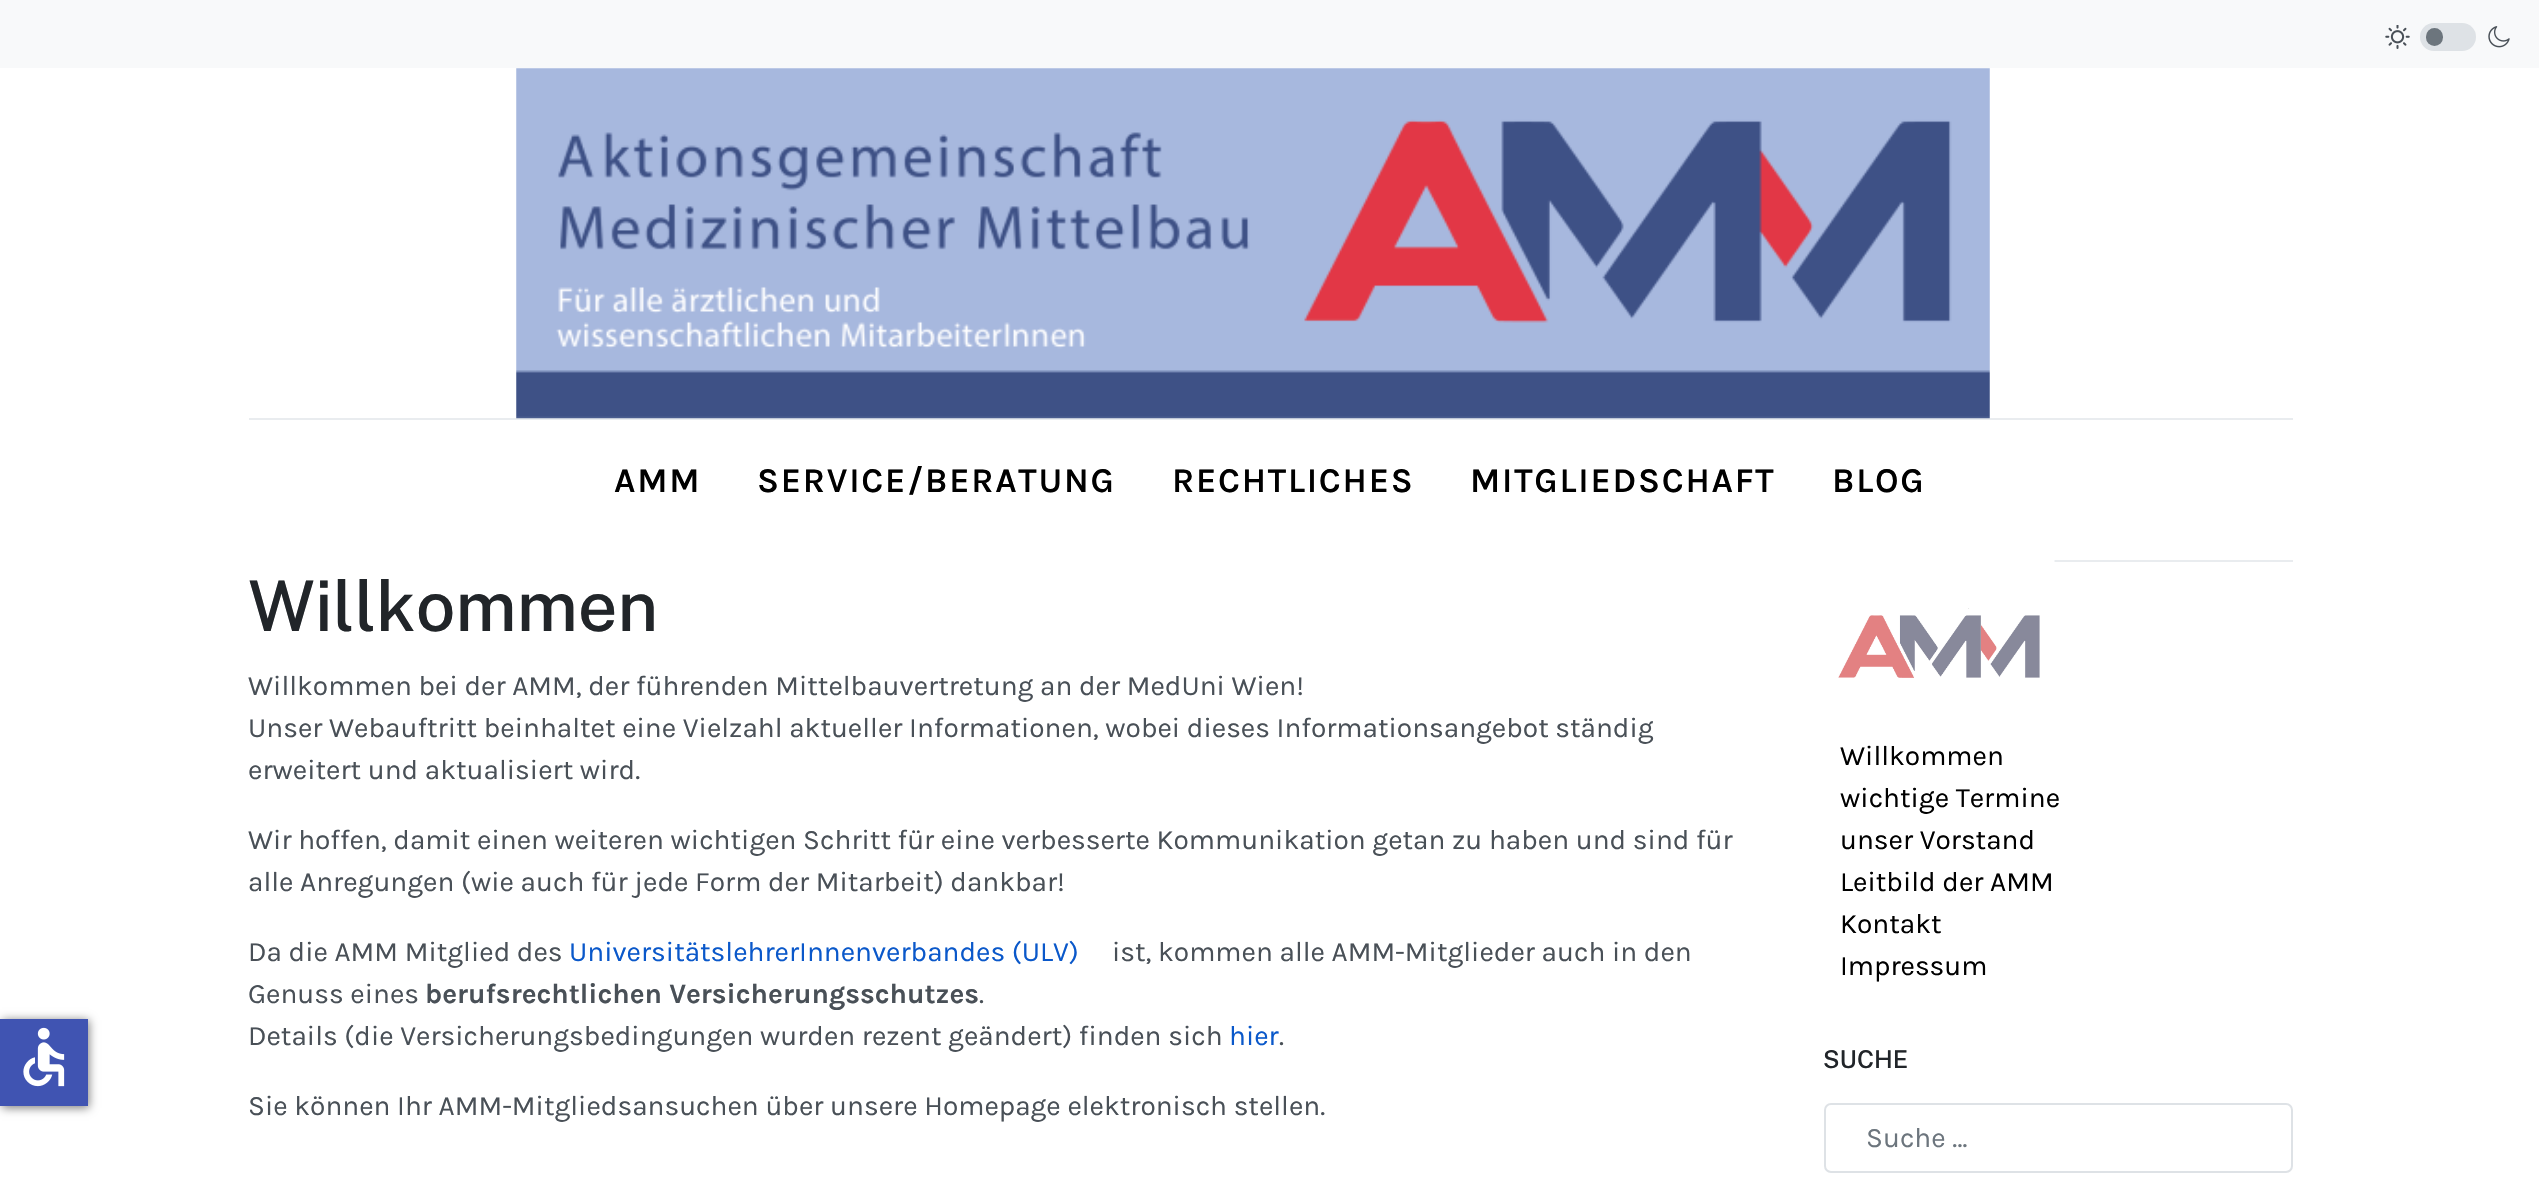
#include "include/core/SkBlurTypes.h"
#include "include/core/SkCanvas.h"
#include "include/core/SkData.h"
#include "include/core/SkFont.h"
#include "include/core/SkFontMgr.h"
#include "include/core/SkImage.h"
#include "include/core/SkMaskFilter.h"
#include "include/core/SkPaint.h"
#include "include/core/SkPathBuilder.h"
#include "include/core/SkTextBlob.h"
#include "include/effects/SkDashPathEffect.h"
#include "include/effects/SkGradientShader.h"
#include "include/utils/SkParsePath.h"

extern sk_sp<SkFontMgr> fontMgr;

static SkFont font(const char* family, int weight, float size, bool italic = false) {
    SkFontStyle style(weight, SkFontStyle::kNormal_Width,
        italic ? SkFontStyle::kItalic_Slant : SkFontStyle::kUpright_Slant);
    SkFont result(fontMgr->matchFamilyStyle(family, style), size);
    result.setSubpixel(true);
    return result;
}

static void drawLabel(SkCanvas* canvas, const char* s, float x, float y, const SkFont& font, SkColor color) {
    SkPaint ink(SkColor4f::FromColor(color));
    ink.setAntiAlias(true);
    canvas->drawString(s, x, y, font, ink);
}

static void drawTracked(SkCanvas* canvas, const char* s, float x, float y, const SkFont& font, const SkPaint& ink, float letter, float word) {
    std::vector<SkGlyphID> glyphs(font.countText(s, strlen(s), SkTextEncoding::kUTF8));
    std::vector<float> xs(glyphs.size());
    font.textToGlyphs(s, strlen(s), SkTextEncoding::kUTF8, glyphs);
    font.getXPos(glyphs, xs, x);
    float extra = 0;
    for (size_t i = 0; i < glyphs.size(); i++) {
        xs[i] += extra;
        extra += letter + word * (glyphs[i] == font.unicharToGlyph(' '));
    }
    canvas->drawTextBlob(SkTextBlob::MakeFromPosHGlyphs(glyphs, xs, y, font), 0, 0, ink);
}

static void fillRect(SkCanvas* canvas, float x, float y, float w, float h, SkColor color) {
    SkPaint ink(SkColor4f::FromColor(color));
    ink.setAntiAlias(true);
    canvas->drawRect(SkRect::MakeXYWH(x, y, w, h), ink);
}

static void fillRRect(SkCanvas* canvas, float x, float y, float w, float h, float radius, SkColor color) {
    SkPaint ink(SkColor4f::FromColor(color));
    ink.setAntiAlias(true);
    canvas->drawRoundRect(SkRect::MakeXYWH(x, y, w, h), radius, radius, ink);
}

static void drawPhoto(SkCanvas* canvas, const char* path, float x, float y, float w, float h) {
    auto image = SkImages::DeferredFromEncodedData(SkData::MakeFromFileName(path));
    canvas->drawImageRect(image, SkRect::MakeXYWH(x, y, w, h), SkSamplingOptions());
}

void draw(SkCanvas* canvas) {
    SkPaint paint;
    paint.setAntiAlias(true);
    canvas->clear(0xFFFFFFFF);
    paint.setColor(0x80000000);
    paint.setMaskFilter(SkMaskFilter::MakeBlur(kNormal_SkBlurStyle, 4.5f));
    canvas->drawRect(SkRect::MakeXYWH(2, 1020, 87, 88), paint);
    paint.setMaskFilter(nullptr);
    fillRect(canvas, 0, 1019, 88, 87, 0xFF4054B2);
    drawPhoto(canvas, "assets/img1.png", 23, 1027, 42, 60);
    fillRect(canvas, 0, 0, 2539, 68, 0xFFF8F9FA);
    drawPhoto(canvas, "assets/img2.png", 2385, 25, 25, 24);
    fillRRect(canvas, 2420, 23, 56, 28, 14, 0xFFDEE2E6);
    fillRRect(canvas, 2426, 28, 17, 18, 8.5f, 0xFF6C757D);
    drawPhoto(canvas, "assets/img3.png", 2488, 26, 22, 22);
    fillRect(canvas, 249, 418, 2044, 2, 0xFFE9ECEF);
    drawPhoto(canvas, "assets/img4.png", 516, 68, 1474, 351);
    SkFont font1 = font("Karla", 600, 35);
    paint.setColor(0xFF000000);
    drawTracked(canvas, "AMM", 614, 492, font1, paint, 1.75f, 0);
    drawTracked(canvas, "SERVICE/BERATUNG", 757, 492, font1, paint, 1.75f, 0);
    drawTracked(canvas, "RECHTLICHES", 1172, 492, font1, paint, 1.75f, 0);
    drawTracked(canvas, "MITGLIEDSCHAFT", 1470, 492, font1, paint, 1.75f, 0);
    drawTracked(canvas, "BLOG", 1832, 492, font1, paint, 1.75f, 0);
    SkFont font2 = font("Public Sans", 500, 70);
    drawLabel(canvas, "Willkommen", 248, 631, font2, 0xFF212529);
    SkFont font3 = font("Karla", 400, 28);
    drawLabel(canvas, "Willkommen bei der AMM, der führenden Mittelbauvertretung an der MedUni Wien!", 248, 695, font3, 0xFF495057);
    drawLabel(canvas, "Unser Webauftritt beinhaltet eine Vielzahl aktueller Informationen, wobei dieses Informationsangebot ständig", 248, 737, font3, 0xFF495057);
    drawLabel(canvas, "erweitert und aktualisiert wird.", 248, 779, font3, 0xFF495057);
    drawLabel(canvas, "Wir hoffen, damit einen weiteren wichtigen Schritt für eine verbesserte Kommunikation getan zu haben und sind für", 248, 849, font3, 0xFF495057);
    drawLabel(canvas, "alle Anregungen (wie auch für jede Form der Mitarbeit) dankbar!", 248, 891, font3, 0xFF495057);
    drawLabel(canvas, "Da die AMM Mitglied des", 248, 961, font3, 0xFF495057);
    drawLabel(canvas, "UniversitätslehrerInnenverbandes (ULV)", 569, 961, font3, 0xFF0A58CA);
    drawLabel(canvas, "ist, kommen alle AMM-Mitglieder auch in den", 1112, 961, font3, 0xFF495057);
    drawLabel(canvas, "Genuss eines", 248, 1003, font3, 0xFF495057);
    SkFont font4 = font("Karla", 700, 28);
    drawLabel(canvas, "berufsrechtlichen Versicherungsschutzes", 425, 1003, font4, 0xFF495057);
    drawLabel(canvas, ".", 979, 1003, font3, 0xFF495057);
    drawLabel(canvas, "Details (die Versicherungsbedingungen wurden rezent geändert) finden sich", 248, 1045, font3, 0xFF495057);
    drawLabel(canvas, "hier", 1229, 1045, font3, 0xFF0A58CA);
    drawLabel(canvas, ".", 1279, 1045, font3, 0xFF495057);
    drawLabel(canvas, "Sie können Ihr AMM-Mitgliedsansuchen über unsere Homepage elektronisch stellen.", 248, 1115, font3, 0xFF495057);
    fillRect(canvas, 2054, 560, 239, 2, 0xFFE9ECEF);
    drawPhoto(canvas, "assets/img5.png", 1824, 560, 231, 118);
    drawLabel(canvas, "Willkommen", 1840, 765, font3, 0xFF000000);
    drawLabel(canvas, "wichtige Termine", 1840, 807, font3, 0xFF000000);
    drawLabel(canvas, "unser Vorstand", 1840, 849, font3, 0xFF000000);
    drawLabel(canvas, "Leitbild der AMM", 1840, 891, font3, 0xFF000000);
    drawLabel(canvas, "Kontakt", 1840, 933, font3, 0xFF000000);
    drawLabel(canvas, "Impressum", 1840, 975, font3, 0xFF000000);
    SkFont font5 = font("Public Sans", 500, 24.5f);
    drawLabel(canvas, "SUCHE", 1823, 1068, font5, 0xFF212529);
    paint.setStroke(true);
    paint.setStrokeWidth(2);
    paint.setColor(0xFFDEE2E6);
    canvas->drawRoundRect(SkRect::MakeXYWH(1825, 1104, 467, 68), 6, 6, paint);
    drawLabel(canvas, "Suche …", 1866, 1147, font3, 0xFF6C757D);
}
